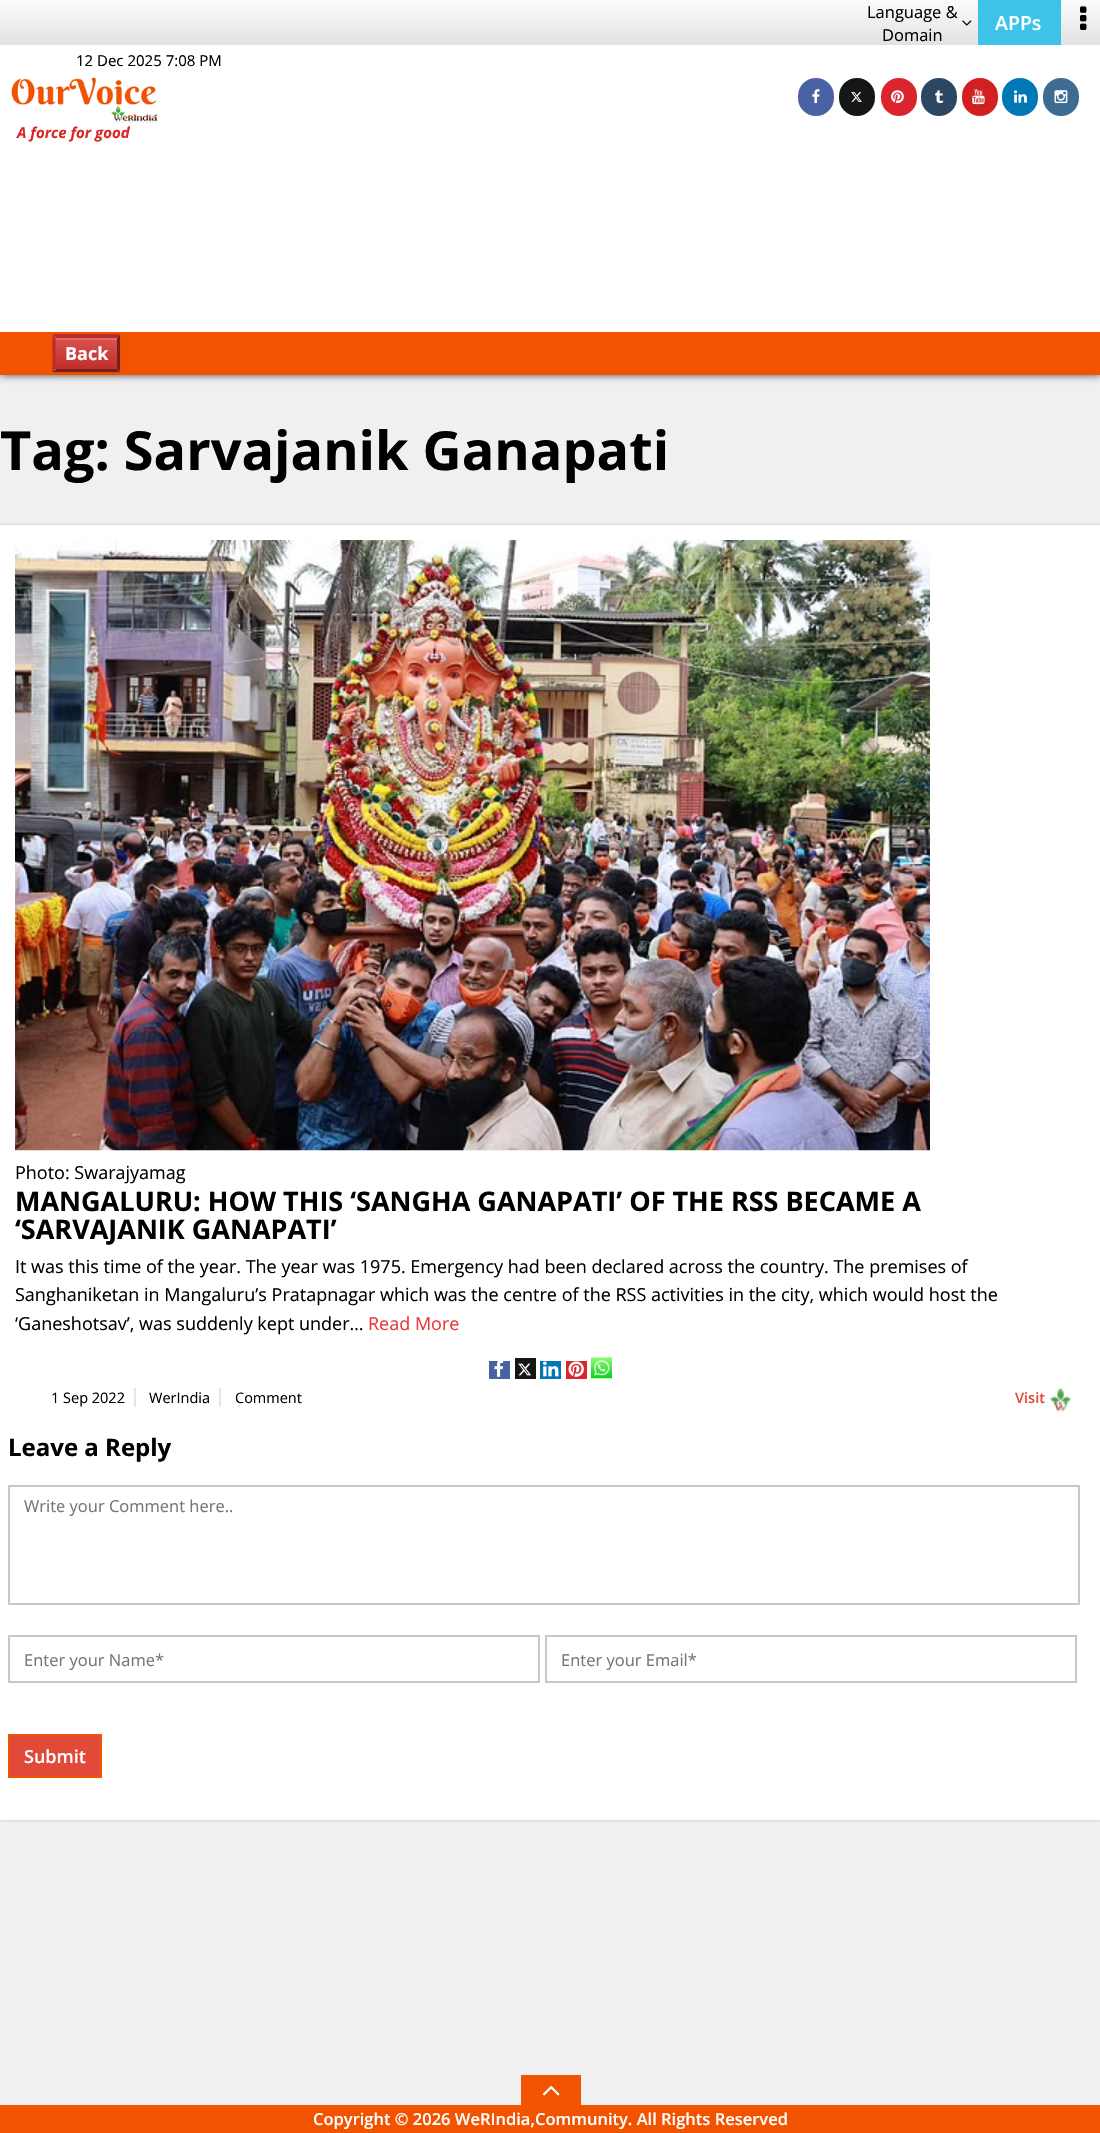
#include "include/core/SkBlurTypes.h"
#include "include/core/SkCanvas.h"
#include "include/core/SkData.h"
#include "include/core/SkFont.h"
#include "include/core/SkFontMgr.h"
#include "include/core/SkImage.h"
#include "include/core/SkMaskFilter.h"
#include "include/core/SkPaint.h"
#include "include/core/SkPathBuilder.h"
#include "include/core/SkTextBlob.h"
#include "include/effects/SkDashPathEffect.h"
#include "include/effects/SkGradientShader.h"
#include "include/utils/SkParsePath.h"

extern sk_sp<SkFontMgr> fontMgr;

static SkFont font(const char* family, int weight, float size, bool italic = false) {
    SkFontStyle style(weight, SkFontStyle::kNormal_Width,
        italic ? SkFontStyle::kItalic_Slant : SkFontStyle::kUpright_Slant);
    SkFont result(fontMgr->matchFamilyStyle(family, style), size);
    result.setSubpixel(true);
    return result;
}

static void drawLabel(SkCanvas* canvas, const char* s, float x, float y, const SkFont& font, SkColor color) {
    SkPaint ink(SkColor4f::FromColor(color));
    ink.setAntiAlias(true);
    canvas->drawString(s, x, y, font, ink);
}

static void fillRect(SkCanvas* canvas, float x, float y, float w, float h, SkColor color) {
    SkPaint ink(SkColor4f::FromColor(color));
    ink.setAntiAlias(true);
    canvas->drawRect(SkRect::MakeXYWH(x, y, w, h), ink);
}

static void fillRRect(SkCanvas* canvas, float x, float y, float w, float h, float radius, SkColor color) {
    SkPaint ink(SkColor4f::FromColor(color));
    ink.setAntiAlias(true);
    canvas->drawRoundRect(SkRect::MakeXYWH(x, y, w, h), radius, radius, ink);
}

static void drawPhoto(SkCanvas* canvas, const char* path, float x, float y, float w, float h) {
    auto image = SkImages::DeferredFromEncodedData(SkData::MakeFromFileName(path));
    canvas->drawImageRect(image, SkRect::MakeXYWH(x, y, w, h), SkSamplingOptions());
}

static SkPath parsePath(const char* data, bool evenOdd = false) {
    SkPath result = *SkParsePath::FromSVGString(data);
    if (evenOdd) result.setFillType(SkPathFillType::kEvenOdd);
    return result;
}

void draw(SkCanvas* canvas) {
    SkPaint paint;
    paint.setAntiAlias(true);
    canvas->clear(0xFFF0F0F0);
    paint.setColor(0xB3000000);
    paint.setMaskFilter(SkMaskFilter::MakeBlur(kNormal_SkBlurStyle, 4));
    canvas->drawRect(SkRect::MakeXYWH(0, 45, 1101, 330), paint);
    paint.setMaskFilter(nullptr);
    fillRect(canvas, 0, 45, 1100, 287, 0xFFFFFFFF);
    {
        const SkColor colors[] = {0xFFFBFBFB, 0xFFE2E2E2};
        const float stops[] = {0, 1};
        const SkPoint ends[] = {{551, 0}, {551, 45}};
        paint.setShader(SkGradientShader::MakeLinear(ends, colors, stops, 2, SkTileMode::kClamp));
        paint.setAlpha(255);
    }
    canvas->drawRect(SkRect::MakeXYWH(0, 0, 1100, 45), paint);
    SkFont font1 = font("Open Sans", 400, 16.5f);
    drawLabel(canvas, "Language &", 867, 18, font1, 0xFF000000);
    drawPhoto(canvas, "assets/img1.png", 962, 20, 10, 6);
    drawLabel(canvas, "Domain", 882, 41, font1, 0xFF000000);
    fillRect(canvas, 978, 0, 83, 45, 0xFF3DC2E8);
    SkFont font2 = font("Open Sans", 600, 19.5f);
    drawLabel(canvas, "APPs", 995, 30, font2, 0xFFFFFFFF);
    drawPhoto(canvas, "assets/img2.png", 1080, 6, 7, 24);
    SkFont font3 = font("Open Sans", 400, 15);
    drawLabel(canvas, "12 Dec 2025 7:08 PM", 76, 66, font3, 0xFF000000);
    drawPhoto(canvas, "assets/img3.png", 11, 77, 147, 46);
    SkFont font4 = font("Open Sans", 700, 15, true);
    drawLabel(canvas, "A force for good", 17, 138, font4, 0xFFDB2726);
    fillRRect(canvas, 798, 78, 36, 38, 18, 0xFF4862A3);
    drawPhoto(canvas, "assets/img4.png", 812, 89, 8, 15);
    fillRRect(canvas, 839, 78, 36, 38, 18, 0xFF151616);
    drawPhoto(canvas, "assets/img5.png", 851, 92, 11, 10);
    fillRRect(canvas, 881, 78, 36, 38, 18, 0xFFDB242C);
    drawPhoto(canvas, "assets/img6.png", 891, 90, 13, 14);
    fillRRect(canvas, 921, 78, 36, 38, 18, 0xFF2C4762);
    drawPhoto(canvas, "assets/img7.png", 935, 90, 9, 14);
    fillRRect(canvas, 962, 78, 36, 38, 18, 0xFFD02022);
    drawPhoto(canvas, "assets/img8.png", 972, 89, 13, 16);
    fillRRect(canvas, 1002, 78, 36, 38, 18, 0xFF0177B5);
    drawPhoto(canvas, "assets/img9.png", 1014, 90, 13, 13);
    fillRRect(canvas, 1043, 78, 36, 38, 18, 0xFF3D6B92);
    drawPhoto(canvas, "assets/img10.png", 1054, 90, 14, 14);
    fillRect(canvas, 0, 332, 1100, 43, 0xFFF25300);
    paint.setShader(nullptr);
    paint.setColor(0x12000000);
    paint.setMaskFilter(SkMaskFilter::MakeBlur(kNormal_SkBlurStyle, 1));
    canvas->drawRect(SkRect::MakeXYWH(53, 336, 67, 38), paint);
    paint.setMaskFilter(nullptr);
    fillRect(canvas, 53, 335, 67, 37, 0xFFEFEFEF);
    {
        const SkColor colors[] = {0xFFD9534F, 0xFFC12E2A};
        const float stops[] = {0, 1};
        const SkPoint ends[] = {{86, 338}, {86, 369}};
        paint.setShader(SkGradientShader::MakeLinear(ends, colors, stops, 2, SkTileMode::kClamp));
        paint.setAlpha(255);
    }
    canvas->drawRect(SkRect::MakeXYWH(55, 338, 62, 31), paint);
    fillRect(canvas, 56, 338, 61, 2, 0xFFDE6C68);
    paint.setShader(nullptr);
    paint.setColor(0xFFB92C28);
    canvas->drawPath(parsePath("M52 334H120L117 338H56Z"), paint);
    paint.setColor(0xFF7B1D1B);
    canvas->drawPath(parsePath("M120 334.5V372L117 369V337.5Z"), paint);
    canvas->drawPath(parsePath("M120 372H52L56 369H117Z"), paint);
    paint.setColor(0xFFB92C28);
    canvas->drawPath(parsePath("M52.5 372V334.5L55.5 337.5V369Z"), paint);
    SkFont font5 = font("Open Sans", 700, 18);
    drawLabel(canvas, "Back", 65, 360, font5, 0xFFFFFFFF);
    SkFont font6 = font("Open Sans", 700, 54);
    drawLabel(canvas, "Tag: Sarvajanik Ganapati", 0, 470, font6, 0xFF000000);
    paint.setColor(0x33000000);
    paint.setMaskFilter(SkMaskFilter::MakeBlur(kNormal_SkBlurStyle, 1.5f));
    canvas->drawRect(SkRect::MakeXYWH(0, 525, 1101, 1295), paint);
    paint.setMaskFilter(nullptr);
    fillRect(canvas, 0, 525, 1100, 1295, 0xFFFFFFFF);
    drawPhoto(canvas, "assets/img11.png", 15, 540, 915, 611);
    SkFont font7 = font("Open Sans", 400, 18);
    drawLabel(canvas, "Photo: Swarajyamag", 15, 1179, font7, 0xFF000000);
    SkFont font8 = font("Open Sans", 700, 27);
    drawLabel(canvas, "MANGALURU: HOW THIS ‘SANGHA GANAPATI’ OF THE RSS BECAME A", 15, 1211, font8, 0xFF000000);
    drawLabel(canvas, "‘SARVAJANIK GANAPATI’", 15, 1239, font8, 0xFF000000);
    drawLabel(canvas, "It was this time of the year. The year was 1975. Emergency had been declared across the country. The premises of", 15, 1273, font7, 0xFF000000);
    drawLabel(canvas, "Sanghaniketan in Mangaluru’s Pratapnagar which was the centre of the RSS activities in the city, which would host the", 15, 1301, font7, 0xFF000000);
    drawLabel(canvas, "‘Ganeshotsav’, was suddenly kept under…", 15, 1330, font7, 0xFF000000);
    drawLabel(canvas, "Read More", 368, 1330, font7, 0xFFEB3838);
    fillRect(canvas, 489, 1361, 21, 18, 0xFF4862A3);
    drawPhoto(canvas, "assets/img12.png", 494, 1361, 10, 16);
    fillRect(canvas, 515, 1358, 21, 21, 0xFF151616);
    drawPhoto(canvas, "assets/img13.png", 518, 1363, 13, 13);
    fillRect(canvas, 540, 1361, 21, 18, 0xFF0177B5);
    drawPhoto(canvas, "assets/img14.png", 543, 1361, 16, 16);
    fillRect(canvas, 566, 1361, 21, 18, 0xFFDB242C);
    drawPhoto(canvas, "assets/img15.png", 568, 1361, 16, 16);
    drawPhoto(canvas, "assets/img16.png", 591, 1357, 21, 22);
    fillRect(canvas, 134, 1388, 2, 19, 0xFFE6E6E6);
    SkFont font9 = font("Open Sans", 400, 14.5f);
    drawLabel(canvas, "1 Sep 2022", 51, 1403, font9, 0xFF000000);
    fillRect(canvas, 219, 1388, 2, 19, 0xFFE6E6E6);
    drawLabel(canvas, "WerIndia", 149, 1403, font9, 0xFF000000);
    drawLabel(canvas, "Comment", 235, 1403, font9, 0xFF000000);
    SkFont font10 = font("Open Sans", 600, 14.5f);
    drawLabel(canvas, "Visit", 1015, 1403, font10, 0xFFE14938);
    drawPhoto(canvas, "assets/img17.png", 1049, 1387, 23, 25);
    SkFont font11 = font("Open Sans", 700, 24);
    drawLabel(canvas, "Leave a Reply", 8, 1456, font11, 0xFF000000);
    paint.setStroke(true);
    paint.setStrokeWidth(2);
    paint.setColor(0xFFC9C7C7);
    canvas->drawRect(SkRect::MakeXYWH(9, 1486, 1070, 118), paint);
    drawLabel(canvas, "Write your Comment here..", 24, 1512, font1, 0xFF757575);
    canvas->drawRect(SkRect::MakeXYWH(9, 1636, 530, 46), paint);
    drawLabel(canvas, "Enter your Name*", 24, 1666, font1, 0xFF757575);
    canvas->drawRect(SkRect::MakeXYWH(546, 1636, 530, 46), paint);
    drawLabel(canvas, "Enter your Email*", 561, 1666, font1, 0xFF757575);
    paint.setStroke(false);
    paint.setColor(0xFFE14938);
    canvas->drawRect(SkRect::MakeXYWH(9, 1735, 92, 42), paint);
    paint.setStroke(true);
    paint.setColor(0xFFF25300);
    canvas->drawRect(SkRect::MakeXYWH(9, 1735, 92, 42), paint);
    SkFont font12 = font("Open Sans", 600, 18);
    drawLabel(canvas, "Submit", 24, 1763, font12, 0xFFFFFFFF);
    fillRect(canvas, 0, 2105, 1100, 28, 0xFFF25300);
    fillRect(canvas, 521, 2075, 60, 30, 0xFFF25300);
    drawPhoto(canvas, "assets/img18.png", 542, 2085, 18, 11);
    SkFont font13 = font("Open Sans", 600, 16.5f);
    drawLabel(canvas, "Copyright © 2026 WeRIndia,Community. All Rights Reserved", 313, 2125, font13, 0xFFFFFFFF);
}
